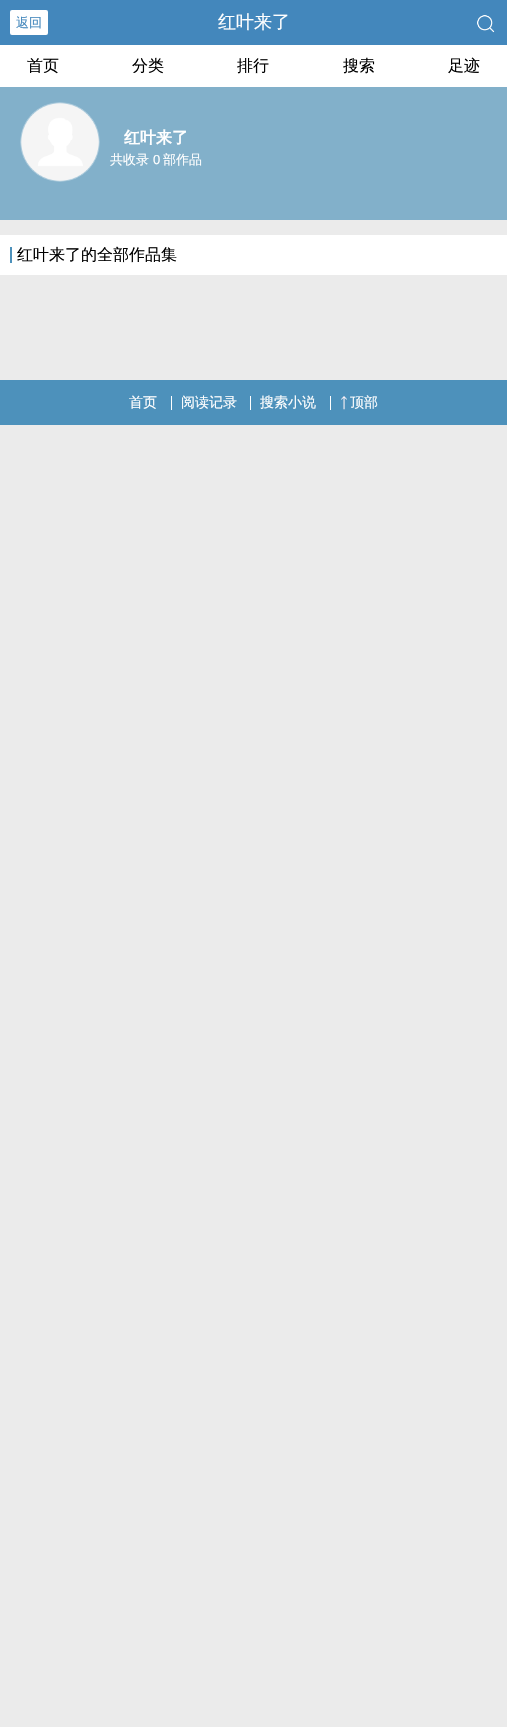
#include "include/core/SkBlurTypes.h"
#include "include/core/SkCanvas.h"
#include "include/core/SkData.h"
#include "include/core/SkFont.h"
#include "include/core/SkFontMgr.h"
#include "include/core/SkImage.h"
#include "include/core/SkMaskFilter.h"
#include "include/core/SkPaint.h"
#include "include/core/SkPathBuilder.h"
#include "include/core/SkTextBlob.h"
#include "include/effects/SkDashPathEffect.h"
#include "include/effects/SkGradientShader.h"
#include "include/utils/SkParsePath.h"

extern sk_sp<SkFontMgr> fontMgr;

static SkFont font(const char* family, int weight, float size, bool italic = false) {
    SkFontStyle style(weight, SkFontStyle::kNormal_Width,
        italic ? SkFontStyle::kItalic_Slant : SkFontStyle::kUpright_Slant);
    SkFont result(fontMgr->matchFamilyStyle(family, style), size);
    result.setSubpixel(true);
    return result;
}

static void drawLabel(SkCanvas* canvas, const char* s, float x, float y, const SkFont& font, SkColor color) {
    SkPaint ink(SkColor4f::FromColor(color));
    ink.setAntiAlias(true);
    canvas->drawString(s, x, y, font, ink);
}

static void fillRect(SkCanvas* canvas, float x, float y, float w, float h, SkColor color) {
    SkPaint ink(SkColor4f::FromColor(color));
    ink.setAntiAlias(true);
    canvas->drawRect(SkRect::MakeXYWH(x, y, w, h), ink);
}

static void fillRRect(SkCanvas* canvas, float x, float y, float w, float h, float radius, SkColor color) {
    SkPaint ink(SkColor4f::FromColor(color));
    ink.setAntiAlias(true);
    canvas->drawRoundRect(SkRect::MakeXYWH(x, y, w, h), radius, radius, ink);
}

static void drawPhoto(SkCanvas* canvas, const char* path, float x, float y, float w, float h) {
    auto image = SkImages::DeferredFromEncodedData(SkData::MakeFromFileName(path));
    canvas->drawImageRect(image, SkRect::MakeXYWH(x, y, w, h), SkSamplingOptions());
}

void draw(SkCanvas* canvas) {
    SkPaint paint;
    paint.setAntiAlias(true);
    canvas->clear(0xFFEBEBEB);
    fillRect(canvas, 0, 0, 507, 45, 0xFF4387BC);
    fillRRect(canvas, 10, 10, 38, 25, 2, 0xFFFFFFFF);
    SkFont font1 = font("WenQuanYi Zen Hei", 500, 13);
    drawLabel(canvas, "返回", 16, 27, font1, 0xFF4387BC);
    SkFont font2 = font("WenQuanYi Zen Hei", 500, 18);
    drawLabel(canvas, "红叶来了", 218, 28, font2, 0xFFFFFFFF);
    drawPhoto(canvas, "assets/img1.png", 477, 15, 18, 18);
    fillRect(canvas, 0, 45, 507, 42, 0xFFFFFFFF);
    SkFont font3 = font("WenQuanYi Zen Hei", 500, 16);
    drawLabel(canvas, "首页", 27, 71, font3, 0xFF000000);
    drawLabel(canvas, "分类", 132, 71, font3, 0xFF000000);
    drawLabel(canvas, "排行", 237, 71, font3, 0xFF000000);
    drawLabel(canvas, "搜索", 343, 71, font3, 0xFF000000);
    drawLabel(canvas, "足迹", 448, 71, font3, 0xFF000000);
    fillRect(canvas, 0, 87, 507, 133, 0xFF82B0CA);
    drawPhoto(canvas, "assets/img2.png", 20, 102, 80, 80);
    SkFont font4 = font("WenQuanYi Zen Hei", 700, 16);
    drawLabel(canvas, "红叶来了", 124, 143, font4, 0xFFFFFFFF);
    drawLabel(canvas, "共收录", 110, 164, font1, 0xFFFFFFFF);
    SkFont font5 = font("Liberation Sans", 400, 13);
    drawLabel(canvas, "0", 153, 164, font5, 0xFFFFFFFF);
    drawLabel(canvas, "部作品", 163, 164, font1, 0xFFFFFFFF);
    fillRect(canvas, 0, 235, 507, 40, 0xFFFFFFFF);
    fillRect(canvas, 10, 247, 2, 16, 0xFF4D91BB);
    drawLabel(canvas, "红叶来了的全部作品集", 17, 260, font3, 0xFF000000);
    fillRect(canvas, 0, 380, 507, 45, 0xFF4D91BB);
    SkFont font6 = font("WenQuanYi Zen Hei", 500, 14);
    drawLabel(canvas, "首页", 129, 407, font6, 0xFFFFFFFF);
    fillRect(canvas, 171, 396, 1, 14, 0xFFFFFFFF);
    drawLabel(canvas, "阅读记录", 181, 407, font6, 0xFFFFFFFF);
    fillRect(canvas, 250, 396, 1, 14, 0xFFFFFFFF);
    drawLabel(canvas, "搜索小说", 260, 407, font6, 0xFFFFFFFF);
    fillRect(canvas, 330, 396, 1, 14, 0xFFFFFFFF);
    drawPhoto(canvas, "assets/img3.png", 341, 396, 6, 14);
    drawLabel(canvas, "顶部", 350, 407, font6, 0xFFFFFFFF);
}
